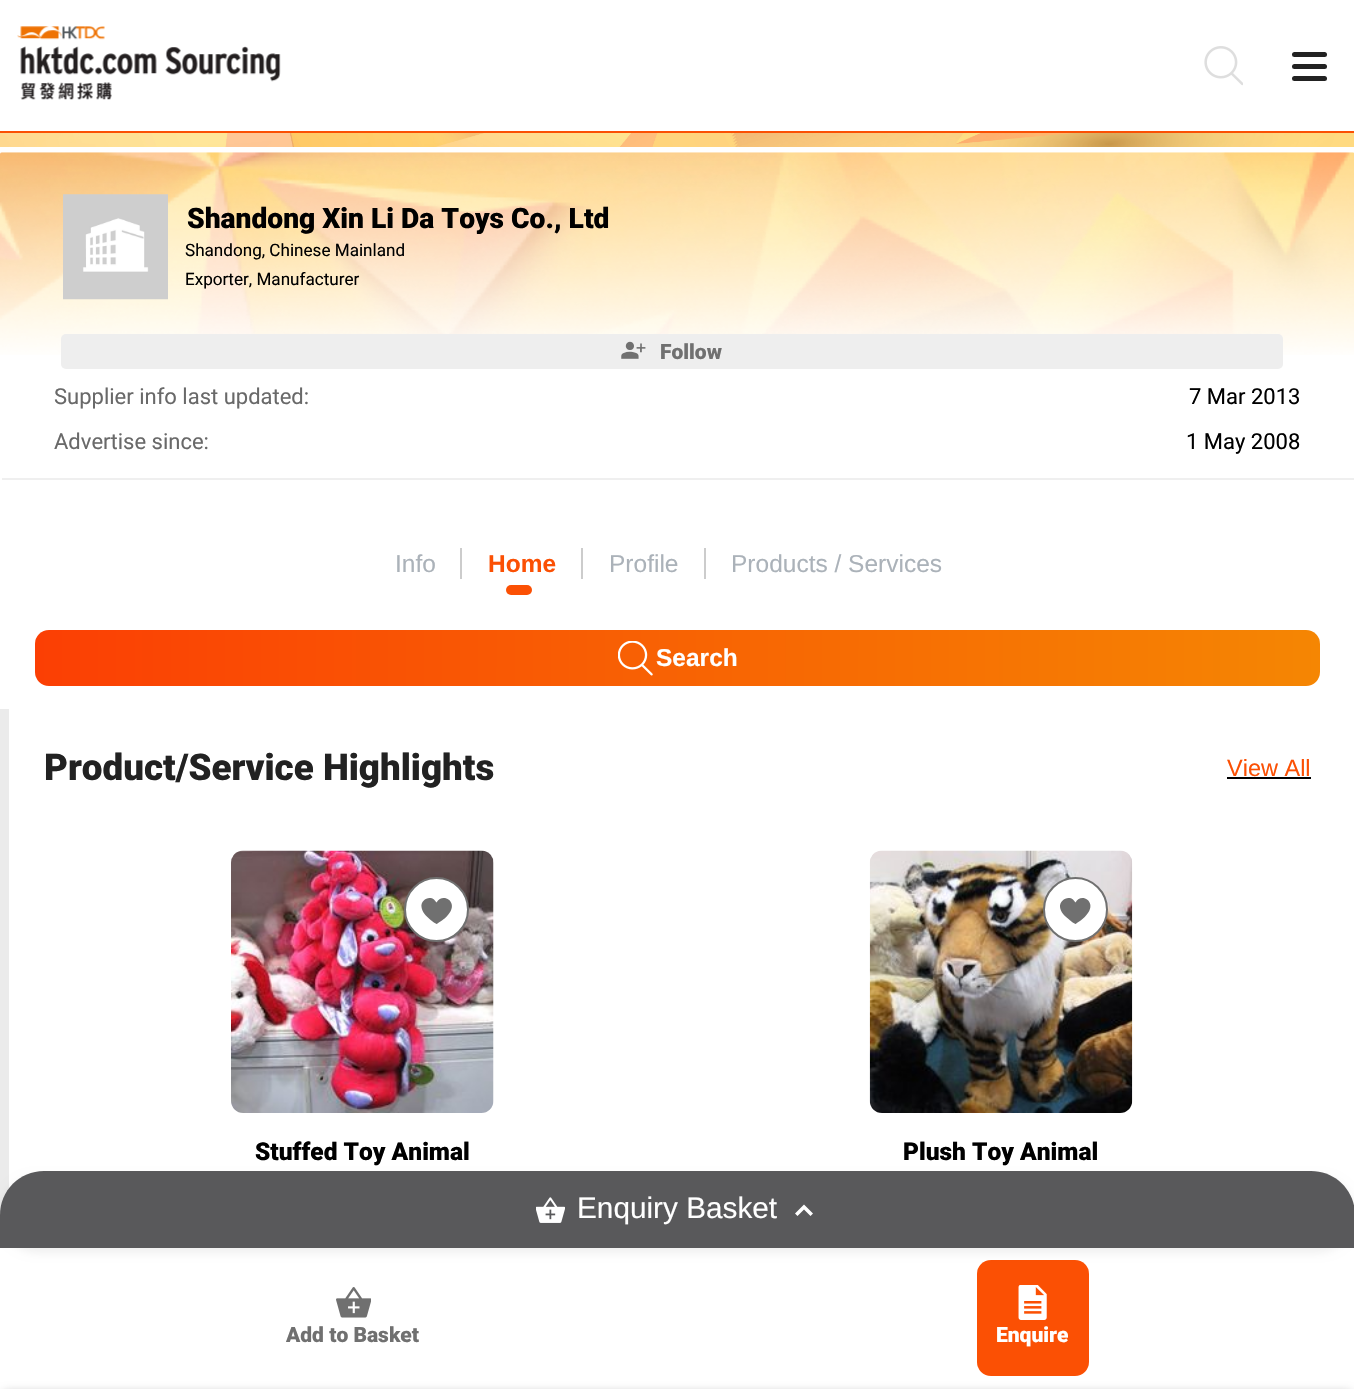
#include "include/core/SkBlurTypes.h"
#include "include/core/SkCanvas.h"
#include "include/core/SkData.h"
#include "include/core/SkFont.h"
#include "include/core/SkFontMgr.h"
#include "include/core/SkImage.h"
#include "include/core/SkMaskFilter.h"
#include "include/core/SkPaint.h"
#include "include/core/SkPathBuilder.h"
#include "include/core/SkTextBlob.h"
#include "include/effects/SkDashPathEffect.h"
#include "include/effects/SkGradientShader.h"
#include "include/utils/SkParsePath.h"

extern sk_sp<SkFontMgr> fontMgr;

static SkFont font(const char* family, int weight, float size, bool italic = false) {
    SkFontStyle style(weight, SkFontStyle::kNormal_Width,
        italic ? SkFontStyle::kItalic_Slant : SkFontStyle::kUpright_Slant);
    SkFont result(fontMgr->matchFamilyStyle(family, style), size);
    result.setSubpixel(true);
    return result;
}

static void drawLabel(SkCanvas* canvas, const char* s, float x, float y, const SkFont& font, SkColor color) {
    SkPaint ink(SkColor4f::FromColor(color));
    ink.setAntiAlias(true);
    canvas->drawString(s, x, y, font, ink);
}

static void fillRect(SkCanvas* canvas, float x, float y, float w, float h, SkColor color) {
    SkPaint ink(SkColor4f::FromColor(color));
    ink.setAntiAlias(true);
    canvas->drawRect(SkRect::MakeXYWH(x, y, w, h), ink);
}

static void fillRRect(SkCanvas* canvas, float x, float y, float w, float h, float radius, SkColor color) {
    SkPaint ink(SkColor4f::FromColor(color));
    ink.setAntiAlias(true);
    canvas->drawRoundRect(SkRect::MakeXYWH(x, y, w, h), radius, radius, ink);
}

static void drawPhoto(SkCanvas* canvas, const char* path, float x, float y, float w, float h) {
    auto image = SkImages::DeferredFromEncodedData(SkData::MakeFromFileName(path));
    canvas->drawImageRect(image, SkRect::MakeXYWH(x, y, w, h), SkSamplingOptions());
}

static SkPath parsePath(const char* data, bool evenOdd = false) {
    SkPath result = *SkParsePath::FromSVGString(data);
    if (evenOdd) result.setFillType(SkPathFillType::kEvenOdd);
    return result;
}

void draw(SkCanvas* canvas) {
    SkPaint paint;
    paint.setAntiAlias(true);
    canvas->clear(0xFFFFFFFF);
    fillRect(canvas, 0, 131, 1354, 2, 0xFFFB5004);
    drawPhoto(canvas, "assets/img1.png", 17, 26, 264, 74);
    drawPhoto(canvas, "assets/img2.png", 1204, 46, 39, 40);
    fillRRect(canvas, 1292, 52, 35, 5, 2.5f, 0xFF222222);
    fillRRect(canvas, 1292, 64, 35, 5, 2.5f, 0xFF222222);
    fillRRect(canvas, 1292, 76, 35, 5, 2.5f, 0xFF222222);
    drawPhoto(canvas, "assets/img3.png", 0, 133, 1354, 14);
    drawPhoto(canvas, "assets/img4.png", 0, 152, 1354, 203);
    fillRect(canvas, 2, 478, 1352, 2, 0xFFEFEFEF);
    drawPhoto(canvas, "assets/img5.png", 63, 194, 105, 106);
    SkFont font1 = font("Roboto", 900, 28.2f);
    drawLabel(canvas, "Shandong Xin Li Da Toys Co., Ltd", 187, 228, font1, 0xFF000000);
    SkFont font2 = font("Roboto", 400, 17.1f);
    drawLabel(canvas, "Shandong, Chinese Mainland", 185, 256, font2, 0xFF000000);
    drawLabel(canvas, "Exporter, Manufacturer", 185, 285, font2, 0xFF000000);
    fillRRect(canvas, 61, 334, 1222, 35, 5, 0xFFEEEEEE);
    drawPhoto(canvas, "assets/img6.png", 621, 341, 25, 18);
    SkFont font3 = font("Roboto", 900, 21);
    drawLabel(canvas, "Follow", 660, 359, font3, 0xFF707070);
    SkFont font4 = font("Roboto", 400, 22);
    drawLabel(canvas, "Supplier info last updated:", 54, 404, font4, 0xFF696969);
    drawLabel(canvas, "7 Mar 2013", 1189, 404, font4, 0xFF000000);
    drawLabel(canvas, "Advertise since:", 54, 449, font4, 0xFF696969);
    drawLabel(canvas, "1 May 2008", 1186, 449, font4, 0xFF000000);
    SkFont font5 = font("Liberation Sans", 400, 24.5f);
    drawLabel(canvas, "Info", 395, 572, font5, 0xFFABB2B9);
    fillRect(canvas, 460, 548, 2, 31, 0xFFCCCCCC);
    SkFont font6 = font("Liberation Sans", 700, 24.5f);
    drawLabel(canvas, "Home", 488, 572, font6, 0xFFFB5004);
    fillRRect(canvas, 506, 585, 26, 10, 5, 0xFFFB5004);
    fillRect(canvas, 581, 548, 2, 31, 0xFFCCCCCC);
    drawLabel(canvas, "Profile", 609, 572, font5, 0xFFABB2B9);
    fillRect(canvas, 704, 548, 2, 31, 0xFFCCCCCC);
    drawLabel(canvas, "Products / Services", 731, 572, font5, 0xFFABB2B9);
    {
        const SkColor colors[] = {0xFFF58603, 0xFFFB3F04};
        const float stops[] = {0, 1};
        const SkPoint ends[] = {{1320, 659}, {35, 657}};
        paint.setShader(SkGradientShader::MakeLinear(ends, colors, stops, 2, SkTileMode::kClamp));
        paint.setAlpha(255);
    }
    canvas->drawRoundRect(SkRect::MakeXYWH(35, 630, 1285, 56), 14, 14, paint);
    drawPhoto(canvas, "assets/img7.png", 618, 641, 35, 35);
    drawLabel(canvas, "Search", 656, 666, font6, 0xFFFFFFFF);
    fillRect(canvas, 0, 709, 9, 506, 0xFFEBEBEB);
    SkFont font7 = font("Roboto", 900, 36.75f);
    drawLabel(canvas, "Product/Service Highlights", 44, 780, font7, 0xFF222222);
    SkFont font8 = font("Liberation Sans", 400, 23.5f);
    drawLabel(canvas, "View All", 1227, 776, font8, 0xFFFB5004);
    fillRect(canvas, 1227, 777, 84, 2, 0xFF000000);
    drawPhoto(canvas, "assets/img8.png", 231, 850, 263, 263);
    paint.setShader(nullptr);
    paint.setColor(0xFFFFFFFF);
    canvas->drawCircle(436.5f, 909.5f, 31.5f, paint);
    paint.setStroke(true);
    paint.setStrokeWidth(2);
    paint.setColor(0xFF707070);
    canvas->drawCircle(436.5f, 909.5f, 31.5f, paint);
    paint.setStroke(false);
    canvas->drawPath(parsePath("M436.5 902.5C443 891 463 903.5 444 919C443 919.5 438 923.5 436.5 924C436 924 430.5 920 429.5 919C426 916 422 912 421.5 907C420.5 900.5 428.5 895.5 434 899.5Z"), paint);
    SkFont font9 = font("Roboto", 900, 24.5f);
    drawLabel(canvas, "Stuffed Toy Animal", 255, 1160, font9, 0xFF000000);
    drawPhoto(canvas, "assets/img9.png", 869, 850, 264, 263);
    paint.setColor(0xFFFFFFFF);
    canvas->drawCircle(1075.5f, 909.5f, 31.5f, paint);
    paint.setStroke(true);
    paint.setColor(0xFF707070);
    canvas->drawCircle(1075.5f, 909.5f, 31.5f, paint);
    paint.setStroke(false);
    canvas->drawPath(parsePath("M1075.5 902.5C1081.5 891 1101.5 903.5 1082.5 919C1082 919.5 1076.5 923.5 1075.5 924C1074.5 924 1069.5 920 1068.5 919C1064.5 916 1060.5 912 1060 907C1059.5 900.5 1067.5 895.5 1073 899.5Z"), paint);
    drawLabel(canvas, "Plush Toy Animal", 903, 1160, font9, 0xFF000000);
    drawPhoto(canvas, "assets/img10.png", 336, 1287, 35, 31);
    drawLabel(canvas, "Add to Basket", 286, 1342, font3, 0xFF707070);
    fillRRect(canvas, 977, 1260, 112, 116, 14, 0xFFFB5004);
    drawPhoto(canvas, "assets/img11.png", 1018, 1285, 29, 35);
    drawLabel(canvas, "Enquire", 996, 1342, font3, 0xFFFFFFFF);
    paint.setColor(0x33000000);
    paint.setMaskFilter(SkMaskFilter::MakeBlur(kNormal_SkBlurStyle, 4.5f));
    canvas->drawRoundRect(SkRect::MakeXYWH(0, 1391, 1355, 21), 9, 9, paint);
    paint.setMaskFilter(nullptr);
    paint.setColor(0x0F000000);
    paint.setMaskFilter(SkMaskFilter::MakeBlur(kNormal_SkBlurStyle, 4.5f));
    canvas->drawRoundRect(SkRect::MakeXYWH(0, 1176, 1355, 77), 44, 44, paint);
    paint.setMaskFilter(nullptr);
    paint.setColor(0xFF59595B);
    canvas->drawPath(parsePath("M44 1171H1311C1335.5 1171 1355 1190.5 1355 1215V1248H0V1215C0 1190.5 19.5 1171 44 1171Z"), paint);
    drawPhoto(canvas, "assets/img12.png", 536, 1197, 29, 26);
    SkFont font10 = font("Liberation Sans", 400, 29.75f);
    drawLabel(canvas, "Enquiry Basket", 577, 1218, font10, 0xFFFFFFFF);
    paint.setColor(0xFFFFFFFF);
    canvas->drawPath(parsePath("M797.5 1216L804 1209.5L810.5 1216L813 1213.5L804 1204.5L795 1213.5Z"), paint);
}
